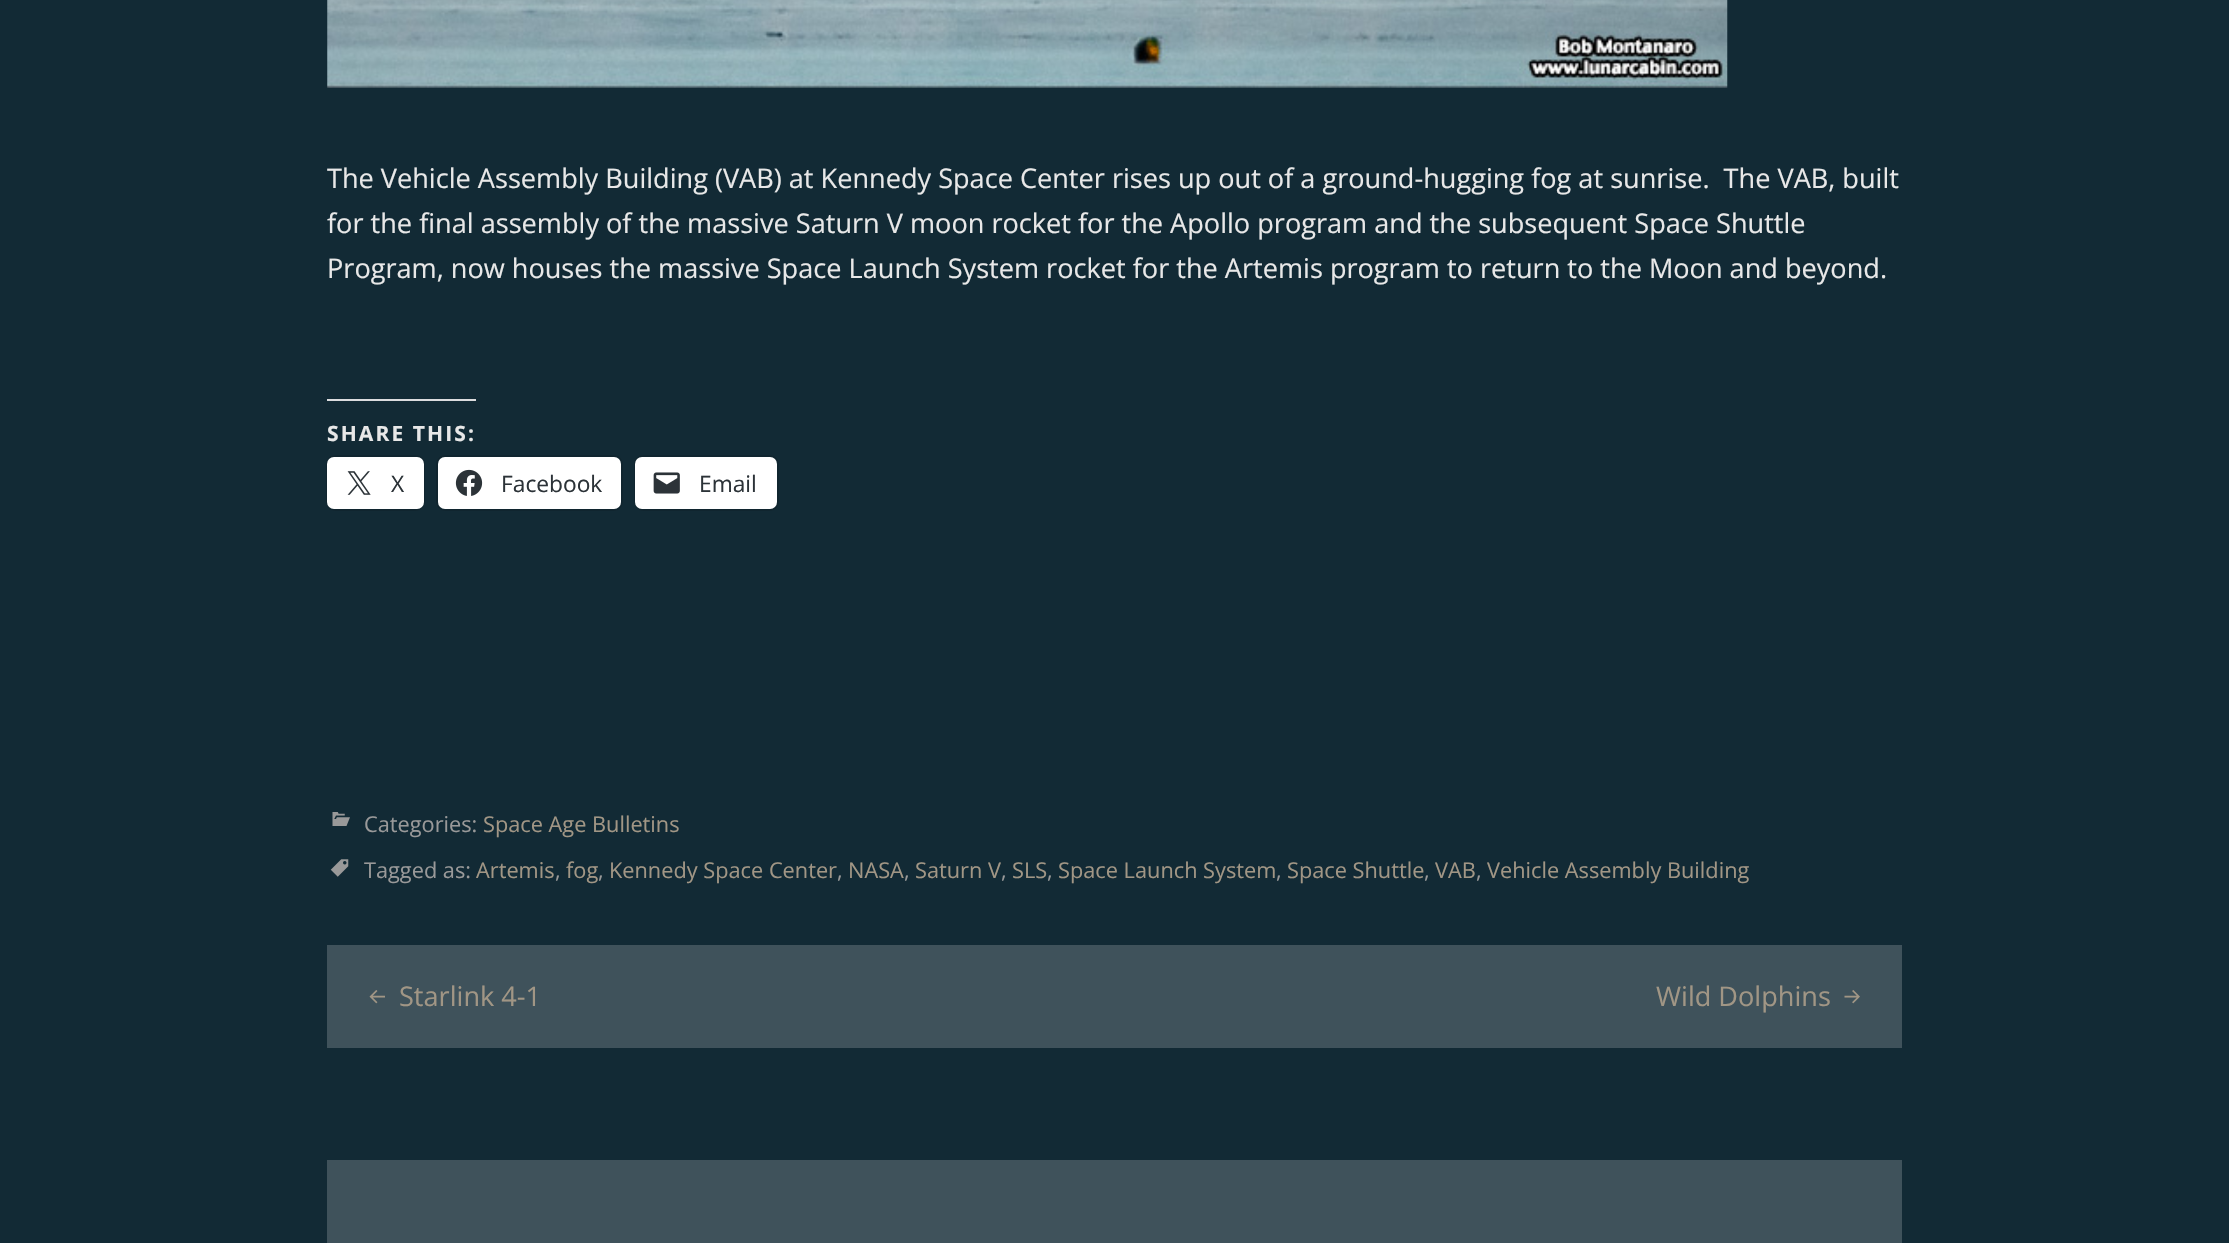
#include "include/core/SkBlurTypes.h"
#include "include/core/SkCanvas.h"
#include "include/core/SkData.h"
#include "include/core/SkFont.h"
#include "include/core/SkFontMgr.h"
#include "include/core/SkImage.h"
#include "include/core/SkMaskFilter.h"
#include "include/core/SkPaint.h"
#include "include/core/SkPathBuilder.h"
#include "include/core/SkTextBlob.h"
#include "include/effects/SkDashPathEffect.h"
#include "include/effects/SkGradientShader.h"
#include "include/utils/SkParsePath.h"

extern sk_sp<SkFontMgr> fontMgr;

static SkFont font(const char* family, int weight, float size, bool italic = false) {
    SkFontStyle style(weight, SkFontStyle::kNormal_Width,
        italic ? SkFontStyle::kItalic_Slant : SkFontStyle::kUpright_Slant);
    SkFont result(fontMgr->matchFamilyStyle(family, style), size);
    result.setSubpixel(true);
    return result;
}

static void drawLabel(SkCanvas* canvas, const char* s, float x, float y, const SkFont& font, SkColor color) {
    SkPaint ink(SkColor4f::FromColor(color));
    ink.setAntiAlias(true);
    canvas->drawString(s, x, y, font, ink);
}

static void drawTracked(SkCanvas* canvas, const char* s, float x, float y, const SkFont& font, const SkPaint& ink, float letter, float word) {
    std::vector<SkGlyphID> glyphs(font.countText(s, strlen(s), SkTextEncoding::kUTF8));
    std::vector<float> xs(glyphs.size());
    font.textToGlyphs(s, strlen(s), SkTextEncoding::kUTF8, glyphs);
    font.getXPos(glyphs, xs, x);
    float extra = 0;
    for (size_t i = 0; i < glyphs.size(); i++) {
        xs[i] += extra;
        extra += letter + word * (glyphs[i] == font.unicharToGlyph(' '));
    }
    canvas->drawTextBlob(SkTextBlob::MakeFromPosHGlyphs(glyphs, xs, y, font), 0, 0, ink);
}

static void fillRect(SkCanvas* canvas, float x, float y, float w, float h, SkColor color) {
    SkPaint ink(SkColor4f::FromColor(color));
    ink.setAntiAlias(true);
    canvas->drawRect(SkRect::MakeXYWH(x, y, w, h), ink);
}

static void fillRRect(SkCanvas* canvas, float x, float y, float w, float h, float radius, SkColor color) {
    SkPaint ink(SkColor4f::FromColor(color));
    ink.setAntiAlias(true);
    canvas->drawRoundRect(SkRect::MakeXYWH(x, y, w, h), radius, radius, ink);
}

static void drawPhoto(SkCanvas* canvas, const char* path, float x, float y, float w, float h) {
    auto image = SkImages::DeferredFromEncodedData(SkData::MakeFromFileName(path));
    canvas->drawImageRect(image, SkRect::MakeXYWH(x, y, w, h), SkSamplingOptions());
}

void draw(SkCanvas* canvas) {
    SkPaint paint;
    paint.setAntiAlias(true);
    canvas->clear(0xFF122A35);
    drawPhoto(canvas, "assets/img1.png", 327, 0, 1401, 88);
    SkFont font1 = font("Open Sans", 400, 27.12f);
    drawLabel(canvas, "The Vehicle Assembly Building (VAB) at Kennedy Space Center rises up out of a ground-hugging fog at sunrise.  The VAB, built", 327, 188, font1, 0xFFE8E8E8);
    drawLabel(canvas, "for the final assembly of the massive Saturn V moon rocket for the Apollo program and the subsequent Space Shuttle", 327, 233, font1, 0xFFE8E8E8);
    drawLabel(canvas, "Program, now houses the massive Space Launch System rocket for the Artemis program to return to the Moon and beyond.", 327, 278, font1, 0xFFE8E8E8);
    fillRect(canvas, 327, 399, 149, 2, 0xFFDCDCDE);
    SkFont font2 = font("Open Sans", 700, 21);
    paint.setColor(0xFFE8E8E8);
    drawTracked(canvas, "SHARE THIS:", 327, 441, font2, paint, 2.1f, 0);
    paint.setStroke(true);
    paint.setStrokeWidth(2);
    paint.setColor(0xFF10252F);
    canvas->drawRoundRect(SkRect::MakeXYWH(327, 456, 97, 54), 8, 8, paint);
    fillRRect(canvas, 327, 457, 97, 52, 7, 0xFFFFFFFF);
    drawPhoto(canvas, "assets/img2.png", 347, 471, 24, 24);
    SkFont font3 = font("Open Sans", 400, 22.75f);
    drawLabel(canvas, "X", 391, 492, font3, 0xFF2C3338);
    canvas->drawRoundRect(SkRect::MakeXYWH(437, 456, 185, 54), 8, 8, paint);
    fillRRect(canvas, 438, 457, 183, 52, 7, 0xFFFFFFFF);
    drawPhoto(canvas, "assets/img3.png", 455, 469, 28, 27);
    drawLabel(canvas, "Facebook", 501, 492, font3, 0xFF2C3338);
    canvas->drawRoundRect(SkRect::MakeXYWH(635, 456, 143, 54), 8, 8, paint);
    fillRRect(canvas, 635, 457, 142, 52, 7, 0xFFFFFFFF);
    drawPhoto(canvas, "assets/img4.png", 653, 472, 27, 22);
    drawLabel(canvas, "Email", 699, 492, font3, 0xFF2C3338);
    drawPhoto(canvas, "assets/img5.png", 332, 812, 18, 14);
    SkFont font4 = font("Open Sans", 400, 21.75f);
    drawLabel(canvas, "Categories:", 364, 832, font4, 0xFF999999);
    drawLabel(canvas, "Space Age Bulletins", 483, 832, font4, 0xFFA19685);
    drawPhoto(canvas, "assets/img6.png", 330, 859, 19, 18);
    drawLabel(canvas, "Tagged as:", 364, 878, font4, 0xFF999999);
    drawLabel(canvas, "Artemis", 476, 878, font4, 0xFFA19685);
    drawLabel(canvas, ",", 555, 878, font4, 0xFF999999);
    drawLabel(canvas, "fog", 566, 878, font4, 0xFFA19685);
    drawLabel(canvas, ",", 598, 878, font4, 0xFF999999);
    drawLabel(canvas, "Kennedy Space Center", 609, 878, font4, 0xFFA19685);
    drawLabel(canvas, ",", 837, 878, font4, 0xFF999999);
    drawLabel(canvas, "NASA", 848, 878, font4, 0xFFA19685);
    drawLabel(canvas, ",", 904, 878, font4, 0xFF999999);
    drawLabel(canvas, "Saturn V", 915, 878, font4, 0xFFA19685);
    drawLabel(canvas, ",", 1001, 878, font4, 0xFF999999);
    drawLabel(canvas, "SLS", 1012, 878, font4, 0xFFA19685);
    drawLabel(canvas, ",", 1047, 878, font4, 0xFF999999);
    drawLabel(canvas, "Space Launch System", 1058, 878, font4, 0xFFA19685);
    drawLabel(canvas, ",", 1276, 878, font4, 0xFF999999);
    drawLabel(canvas, "Space Shuttle", 1287, 878, font4, 0xFFA19685);
    drawLabel(canvas, ",", 1424, 878, font4, 0xFF999999);
    drawLabel(canvas, "VAB", 1435, 878, font4, 0xFFA19685);
    drawLabel(canvas, ",", 1476, 878, font4, 0xFF999999);
    drawLabel(canvas, "Vehicle Assembly Building", 1487, 878, font4, 0xFFA19685);
    fillRect(canvas, 327, 945, 1575, 103, 0xFF3F525B);
    drawPhoto(canvas, "assets/img7.png", 369, 990, 16, 14);
    drawLabel(canvas, "Starlink 4-1", 399, 1006, font1, 0xFFA19685);
    drawLabel(canvas, "Wild Dolphins", 1656, 1006, font1, 0xFFA19685);
    drawPhoto(canvas, "assets/img8.png", 1844, 990, 16, 14);
    fillRect(canvas, 327, 1160, 1575, 83, 0xFF3F525B);
}
